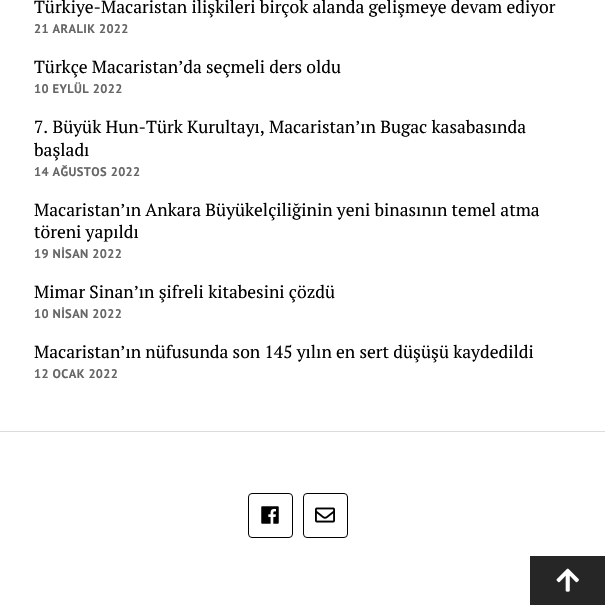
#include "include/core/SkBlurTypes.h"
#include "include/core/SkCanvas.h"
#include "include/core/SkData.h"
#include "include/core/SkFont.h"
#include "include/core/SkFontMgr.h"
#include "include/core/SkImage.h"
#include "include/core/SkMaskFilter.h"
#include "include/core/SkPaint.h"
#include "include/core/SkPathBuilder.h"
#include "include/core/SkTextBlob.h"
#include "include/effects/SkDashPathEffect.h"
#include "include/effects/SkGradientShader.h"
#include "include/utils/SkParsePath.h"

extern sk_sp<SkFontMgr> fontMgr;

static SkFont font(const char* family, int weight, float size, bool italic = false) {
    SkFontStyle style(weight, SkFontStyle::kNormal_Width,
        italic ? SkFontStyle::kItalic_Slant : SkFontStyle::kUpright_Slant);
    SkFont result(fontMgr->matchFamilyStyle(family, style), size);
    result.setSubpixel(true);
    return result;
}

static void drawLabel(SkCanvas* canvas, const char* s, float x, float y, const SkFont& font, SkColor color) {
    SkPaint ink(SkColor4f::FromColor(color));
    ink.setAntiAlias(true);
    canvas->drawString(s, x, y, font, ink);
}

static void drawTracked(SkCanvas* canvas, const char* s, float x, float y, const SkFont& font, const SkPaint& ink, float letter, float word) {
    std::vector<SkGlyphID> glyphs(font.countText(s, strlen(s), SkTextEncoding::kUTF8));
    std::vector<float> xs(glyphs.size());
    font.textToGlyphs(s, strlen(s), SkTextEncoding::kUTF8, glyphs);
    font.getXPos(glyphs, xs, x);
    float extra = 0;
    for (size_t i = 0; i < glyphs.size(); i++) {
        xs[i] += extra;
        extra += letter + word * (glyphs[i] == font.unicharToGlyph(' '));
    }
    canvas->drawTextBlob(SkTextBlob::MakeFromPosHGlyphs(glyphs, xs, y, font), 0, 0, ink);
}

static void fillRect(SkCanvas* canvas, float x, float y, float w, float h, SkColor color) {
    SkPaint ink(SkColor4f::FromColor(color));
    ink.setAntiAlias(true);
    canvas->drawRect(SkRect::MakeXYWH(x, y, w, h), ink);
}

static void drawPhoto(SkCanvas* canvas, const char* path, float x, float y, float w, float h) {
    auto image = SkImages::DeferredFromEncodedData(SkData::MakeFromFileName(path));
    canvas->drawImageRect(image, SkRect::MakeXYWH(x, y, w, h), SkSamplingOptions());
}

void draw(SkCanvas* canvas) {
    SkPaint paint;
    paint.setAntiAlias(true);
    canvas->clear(0xFFFFFFFF);
    SkFont font1 = font("PT Serif", 400, 17.5f);
    drawLabel(canvas, "Türkiye-Macaristan ilişkileri birçok alanda gelişmeye devam ediyor", 34, 13, font1, 0xFF000000);
    SkFont font2 = font("PT Sans", 700, 12.5f);
    paint.setColor(0xFF666666);
    drawTracked(canvas, "21 ARALIK 2022", 34, 33, font2, paint, 0.4f, 0);
    drawLabel(canvas, "Türkçe Macaristan’da seçmeli ders oldu", 34, 73, font1, 0xFF000000);
    drawTracked(canvas, "10 EYLÜL 2022", 34, 93, font2, paint, 0.4f, 0);
    drawLabel(canvas, "7. Büyük Hun-Türk Kurultayı, Macaristan’ın Bugac kasabasında", 34, 133, font1, 0xFF000000);
    drawLabel(canvas, "başladı", 34, 156, font1, 0xFF000000);
    drawTracked(canvas, "14 AĞUSTOS 2022", 34, 176, font2, paint, 0.4f, 0);
    drawLabel(canvas, "Macaristan’ın Ankara Büyükelçiliğinin yeni binasının temel atma", 34, 216, font1, 0xFF000000);
    drawLabel(canvas, "töreni yapıldı", 34, 238, font1, 0xFF000000);
    drawTracked(canvas, "19 NİSAN 2022", 34, 258, font2, paint, 0.4f, 0);
    drawLabel(canvas, "Mimar Sinan’ın şifreli kitabesini çözdü", 34, 298, font1, 0xFF000000);
    drawTracked(canvas, "10 NİSAN 2022", 34, 318, font2, paint, 0.4f, 0);
    drawLabel(canvas, "Macaristan’ın nüfusunda son 145 yılın en sert düşüşü kaydedildi", 34, 358, font1, 0xFF000000);
    drawTracked(canvas, "12 OCAK 2022", 34, 378, font2, paint, 0.4f, 0);
    fillRect(canvas, 0, 431, 605, 1, 0xFFDCDCDC);
    paint.setStroke(true);
    paint.setStrokeWidth(1);
    paint.setColor(0xFF000000);
    canvas->drawRoundRect(SkRect::MakeXYWH(248.5f, 493.5f, 44, 44), 3.5f, 3.5f, paint);
    drawPhoto(canvas, "assets/img1.png", 261, 506, 18, 18);
    canvas->drawRoundRect(SkRect::MakeXYWH(303.5f, 493.5f, 44, 44), 3.5f, 3.5f, paint);
    drawPhoto(canvas, "assets/img2.png", 315, 507, 20, 16);
    fillRect(canvas, 530, 556, 75, 49, 0xFF262626);
    drawPhoto(canvas, "assets/img3.png", 556, 568, 23, 24);
}
